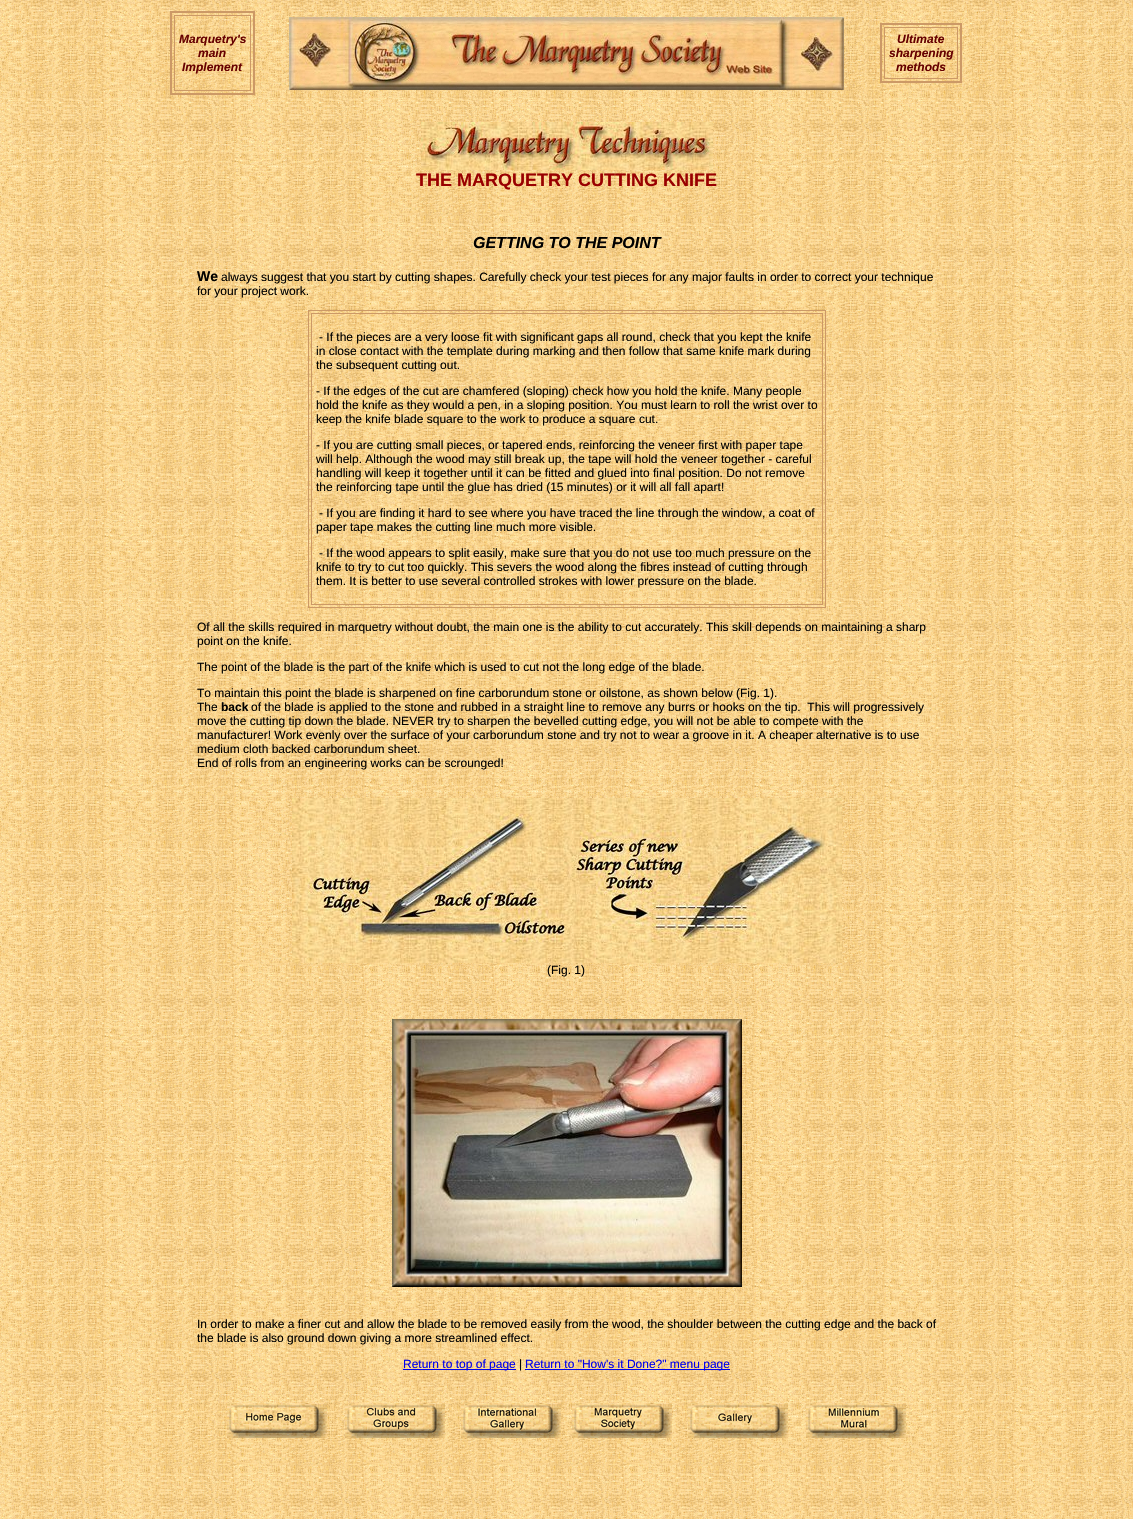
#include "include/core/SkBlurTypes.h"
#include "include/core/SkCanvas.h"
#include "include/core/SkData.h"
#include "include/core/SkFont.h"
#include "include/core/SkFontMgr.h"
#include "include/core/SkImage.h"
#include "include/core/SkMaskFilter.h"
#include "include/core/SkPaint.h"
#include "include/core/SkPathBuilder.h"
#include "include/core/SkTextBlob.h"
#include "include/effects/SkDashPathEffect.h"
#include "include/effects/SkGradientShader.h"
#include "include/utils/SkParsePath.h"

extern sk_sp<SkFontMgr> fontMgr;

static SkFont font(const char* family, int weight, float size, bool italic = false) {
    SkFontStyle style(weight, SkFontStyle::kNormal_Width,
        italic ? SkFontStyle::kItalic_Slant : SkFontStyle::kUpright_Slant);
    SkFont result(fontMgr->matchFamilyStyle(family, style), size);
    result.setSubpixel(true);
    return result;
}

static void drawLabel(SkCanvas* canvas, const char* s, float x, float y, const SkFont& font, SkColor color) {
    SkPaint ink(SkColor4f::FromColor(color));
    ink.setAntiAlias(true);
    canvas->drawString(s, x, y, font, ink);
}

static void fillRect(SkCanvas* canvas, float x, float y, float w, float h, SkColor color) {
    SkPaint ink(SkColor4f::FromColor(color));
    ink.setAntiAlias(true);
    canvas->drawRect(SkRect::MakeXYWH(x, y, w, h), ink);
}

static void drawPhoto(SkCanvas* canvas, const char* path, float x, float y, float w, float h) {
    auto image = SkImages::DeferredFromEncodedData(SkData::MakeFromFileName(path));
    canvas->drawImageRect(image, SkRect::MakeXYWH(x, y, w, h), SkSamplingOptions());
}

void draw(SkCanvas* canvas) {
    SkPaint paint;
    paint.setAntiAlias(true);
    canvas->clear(0xFFFFFFFF);
    drawPhoto(canvas, "assets/img1.png", 0, 0, 1133, 1519);
    paint.setStroke(true);
    paint.setStrokeWidth(2);
    paint.setColor(0xFFCC9966);
    canvas->drawRect(SkRect::MakeXYWH(171, 12, 83, 82), paint);
    paint.setStrokeWidth(1);
    canvas->drawRect(SkRect::MakeXYWH(174.5f, 15.5f, 76, 75), paint);
    SkFont font1 = font("Liberation Sans", 700, 12, true);
    drawLabel(canvas, "Marquetry's", 179, 43, font1, 0xFF660000);
    drawLabel(canvas, "main", 198, 57, font1, 0xFF660000);
    drawLabel(canvas, "Implement", 182, 71, font1, 0xFF660000);
    drawPhoto(canvas, "assets/img2.png", 289, 17, 555, 73);
    paint.setStrokeWidth(2);
    canvas->drawRect(SkRect::MakeXYWH(881, 24, 80, 58), paint);
    paint.setStrokeWidth(1);
    canvas->drawRect(SkRect::MakeXYWH(884.5f, 27.5f, 73, 51), paint);
    drawLabel(canvas, "Ultimate", 897, 43, font1, 0xFF660000);
    drawLabel(canvas, "sharpening", 889, 57, font1, 0xFF660000);
    drawLabel(canvas, "methods", 896, 71, font1, 0xFF660000);
    drawPhoto(canvas, "assets/img3.png", 421, 122, 292, 48);
    SkFont font2 = font("Liberation Sans", 700, 18);
    drawLabel(canvas, "THE MARQUETRY CUTTING KNIFE", 416, 186, font2, 0xFF990000);
    SkFont font3 = font("Liberation Sans", 700, 16, true);
    drawLabel(canvas, "GETTING TO THE POINT", 473, 248, font3, 0xFF000000);
    SkFont font4 = font("Liberation Sans", 700, 14);
    drawLabel(canvas, "We", 197, 281, font4, 0xFF000000);
    SkFont font5 = font("Liberation Sans", 400, 12);
    drawLabel(canvas, "always suggest that you start by cutting shapes. Carefully check your test pieces for any major faults in order to correct your technique", 221, 281, font5, 0xFF000000);
    drawLabel(canvas, "for your project work.", 197, 295, font5, 0xFF000000);
    canvas->drawRect(SkRect::MakeXYWH(308.5f, 310.5f, 517, 297), paint);
    canvas->drawRect(SkRect::MakeXYWH(311.5f, 313.5f, 511, 291), paint);
    drawLabel(canvas, "- If the pieces are a very loose fit with significant gaps all round, check that you kept the knife", 319, 341, font5, 0xFF000000);
    drawLabel(canvas, "in close contact with the template during marking and then follow that same knife mark during", 316, 355, font5, 0xFF000000);
    drawLabel(canvas, "the subsequent cutting out.", 316, 369, font5, 0xFF000000);
    drawLabel(canvas, "- If the edges of the cut are chamfered (sloping) check how you hold the knife. Many people", 316, 395, font5, 0xFF000000);
    drawLabel(canvas, "hold the knife as they would a pen, in a sloping position. You must learn to roll the wrist over to", 316, 409, font5, 0xFF000000);
    drawLabel(canvas, "keep the knife blade square to the work to produce a square cut.", 316, 423, font5, 0xFF000000);
    drawLabel(canvas, "- If you are cutting small pieces, or tapered ends, reinforcing the veneer first with paper tape", 316, 449, font5, 0xFF000000);
    drawLabel(canvas, "will help. Although the wood may still break up, the tape will hold the veneer together - careful", 316, 463, font5, 0xFF000000);
    drawLabel(canvas, "handling will keep it together until it can be fitted and glued into final position. Do not remove", 316, 477, font5, 0xFF000000);
    drawLabel(canvas, "the reinforcing tape until the glue has dried (15 minutes) or it will all fall apart!", 316, 491, font5, 0xFF000000);
    drawLabel(canvas, "- If you are finding it hard to see where you have traced the line through the window, a coat of", 319, 517, font5, 0xFF000000);
    drawLabel(canvas, "paper tape makes the cutting line much more visible.", 316, 531, font5, 0xFF000000);
    drawLabel(canvas, "- If the wood appears to split easily, make sure that you do not use too much pressure on the", 319, 557, font5, 0xFF000000);
    drawLabel(canvas, "knife to try to cut too quickly. This severs the wood along the fibres instead of cutting through", 316, 571, font5, 0xFF000000);
    drawLabel(canvas, "them. It is better to use several controlled strokes with lower pressure on the blade.", 316, 585, font5, 0xFF000000);
    drawLabel(canvas, "Of all the skills required in marquetry without doubt, the main one is the ability to cut accurately. This skill depends on maintaining a sharp", 197, 631, font5, 0xFF000000);
    drawLabel(canvas, "point on the knife.", 197, 645, font5, 0xFF000000);
    drawLabel(canvas, "The point of the blade is the part of the knife which is used to cut not the long edge of the blade.", 197, 671, font5, 0xFF000000);
    drawLabel(canvas, "To maintain this point the blade is sharpened on fine carborundum stone or oilstone, as shown below (Fig. 1).", 197, 697, font5, 0xFF000000);
    drawLabel(canvas, "The", 197, 711, font5, 0xFF000000);
    SkFont font6 = font("Liberation Sans", 700, 12);
    drawLabel(canvas, "back", 221, 711, font6, 0xFF000000);
    drawLabel(canvas, "of the blade is applied to the stone and rubbed in a straight line to remove any burrs or hooks on the tip.  This will progressively", 251, 711, font5, 0xFF000000);
    drawLabel(canvas, "move the cutting tip down the blade. NEVER try to sharpen the bevelled cutting edge, you will not be able to compete with the", 197, 725, font5, 0xFF000000);
    drawLabel(canvas, "manufacturer! Work evenly over the surface of your carborundum stone and try not to wear a groove in it. A cheaper alternative is to use", 197, 739, font5, 0xFF000000);
    drawLabel(canvas, "medium cloth backed carborundum sheet.", 197, 753, font5, 0xFF000000);
    drawLabel(canvas, "End of rolls from an engineering works can be scrounged!", 197, 767, font5, 0xFF000000);
    drawPhoto(canvas, "assets/img4.png", 292, 798, 550, 165);
    drawLabel(canvas, "(Fig. 1)", 547, 974, font5, 0xFF000000);
    drawPhoto(canvas, "assets/img5.png", 392, 1019, 350, 268);
    drawLabel(canvas, "In order to make a finer cut and allow the blade to be removed easily from the wood, the shoulder between the cutting edge and the back of", 197, 1328, font5, 0xFF000000);
    drawLabel(canvas, "the blade is also ground down giving a more streamlined effect.", 197, 1342, font5, 0xFF000000);
    fillRect(canvas, 403, 1369, 113, 1, 0xFF0000EE);
    drawLabel(canvas, "Return to top of page", 403, 1368, font5, 0xFF0000EE);
    drawLabel(canvas, "|", 519, 1368, font5, 0xFF000000);
    fillRect(canvas, 525, 1369, 205, 1, 0xFF0000EE);
    drawLabel(canvas, "Return to \"How's it Done?\" menu page", 525, 1368, font5, 0xFF0000EE);
    drawPhoto(canvas, "assets/img6.png", 227, 1403, 100, 35);
    drawPhoto(canvas, "assets/img7.png", 345, 1403, 100, 35);
    drawPhoto(canvas, "assets/img8.png", 461, 1403, 100, 35);
    drawPhoto(canvas, "assets/img9.png", 572, 1403, 100, 35);
    drawPhoto(canvas, "assets/img10.png", 688, 1403, 100, 35);
    drawPhoto(canvas, "assets/img11.png", 806, 1403, 100, 35);
}
